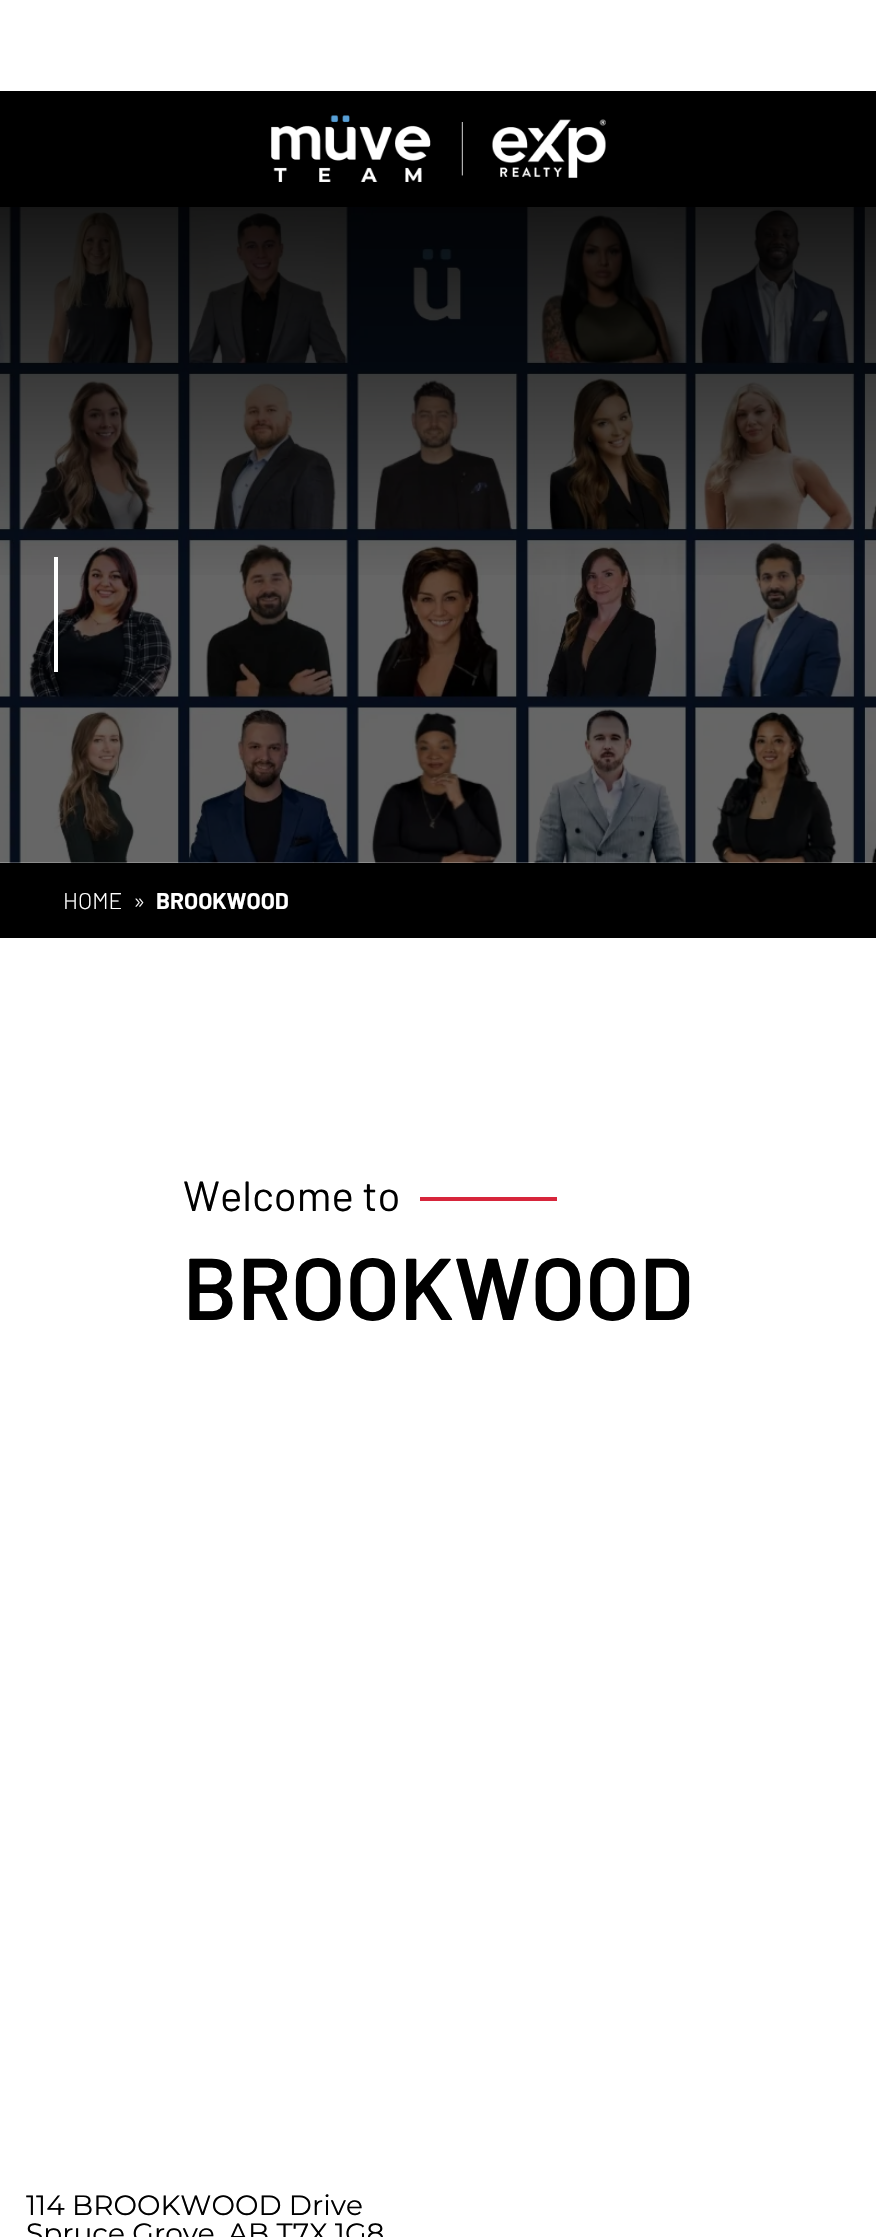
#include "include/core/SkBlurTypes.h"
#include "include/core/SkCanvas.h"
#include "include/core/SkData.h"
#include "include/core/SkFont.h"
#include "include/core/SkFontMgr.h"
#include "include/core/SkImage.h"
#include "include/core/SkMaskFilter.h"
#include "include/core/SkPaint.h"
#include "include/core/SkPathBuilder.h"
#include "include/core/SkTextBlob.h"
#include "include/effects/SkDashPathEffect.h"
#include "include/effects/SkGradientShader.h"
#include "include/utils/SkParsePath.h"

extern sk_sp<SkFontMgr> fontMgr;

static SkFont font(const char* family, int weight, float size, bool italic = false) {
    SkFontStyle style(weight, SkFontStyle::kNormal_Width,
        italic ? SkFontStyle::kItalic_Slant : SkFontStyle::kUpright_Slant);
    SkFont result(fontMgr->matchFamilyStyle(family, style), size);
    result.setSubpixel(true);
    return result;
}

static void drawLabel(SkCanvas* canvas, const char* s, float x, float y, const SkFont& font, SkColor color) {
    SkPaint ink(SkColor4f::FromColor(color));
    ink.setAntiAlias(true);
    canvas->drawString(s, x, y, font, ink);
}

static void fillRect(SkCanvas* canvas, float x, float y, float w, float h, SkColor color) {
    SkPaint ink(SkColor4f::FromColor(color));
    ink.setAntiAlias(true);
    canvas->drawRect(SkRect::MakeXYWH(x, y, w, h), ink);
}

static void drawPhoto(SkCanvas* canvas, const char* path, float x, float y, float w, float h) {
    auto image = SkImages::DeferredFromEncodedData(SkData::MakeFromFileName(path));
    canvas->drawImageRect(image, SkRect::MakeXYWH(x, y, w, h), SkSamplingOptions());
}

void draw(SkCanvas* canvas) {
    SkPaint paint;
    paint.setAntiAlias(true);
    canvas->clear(0xFFFFFFFF);
    fillRect(canvas, 0, 91, 876, 116, 0xFF000000);
    drawPhoto(canvas, "assets/img1.png", 271, 115, 335, 67);
    drawPhoto(canvas, "assets/img2.png", 0, 207, 876, 656);
    {
        const SkColor colors[] = {0xC7000000, 0x00000000, 0x00000000};
        const float stops[] = {0, 0.58f, 1};
        const SkPoint ends[] = {{438, 206}, {438, 863}};
        paint.setShader(SkGradientShader::MakeLinear(ends, colors, stops, 3, SkTileMode::kClamp));
        paint.setAlpha(255);
    }
    canvas->drawRect(SkRect::MakeXYWH(0, 207, 876, 368), paint);
    fillRect(canvas, 54, 557, 4, 115, 0xFFFFFFFF);
    fillRect(canvas, 0, 863, 876, 75, 0xFF000000);
    SkFont font1 = font("Barlow", 300, 22.75f);
    drawLabel(canvas, "HOME", 63, 909, font1, 0xFFFFFFFF);
    drawLabel(canvas, "»", 133, 909, font1, 0xFFFFFFFF);
    SkFont font2 = font("Barlow", 700, 22.75f);
    drawLabel(canvas, "BROOKWOOD", 156, 909, font2, 0xFFFFFFFF);
    SkFont font3 = font("Barlow", 400, 42);
    drawLabel(canvas, "Welcome to", 183, 1211, font3, 0xFF000000);
    fillRect(canvas, 420, 1197, 137, 4, 0xFFD7253B);
    SkFont font4 = font("Barlow", 600, 87.5f);
    drawLabel(canvas, "BROOKWOOD", 183, 1320, font4, 0xFF000000);
    SkFont font5 = font("Montserrat", 400, 28);
    drawLabel(canvas, "114 BROOKWOOD Drive", 26, 2215, font5, 0xFF000000);
    drawLabel(canvas, "Spruce Grove, AB T7X 1G8", 26, 2243, font5, 0xFF000000);
}
